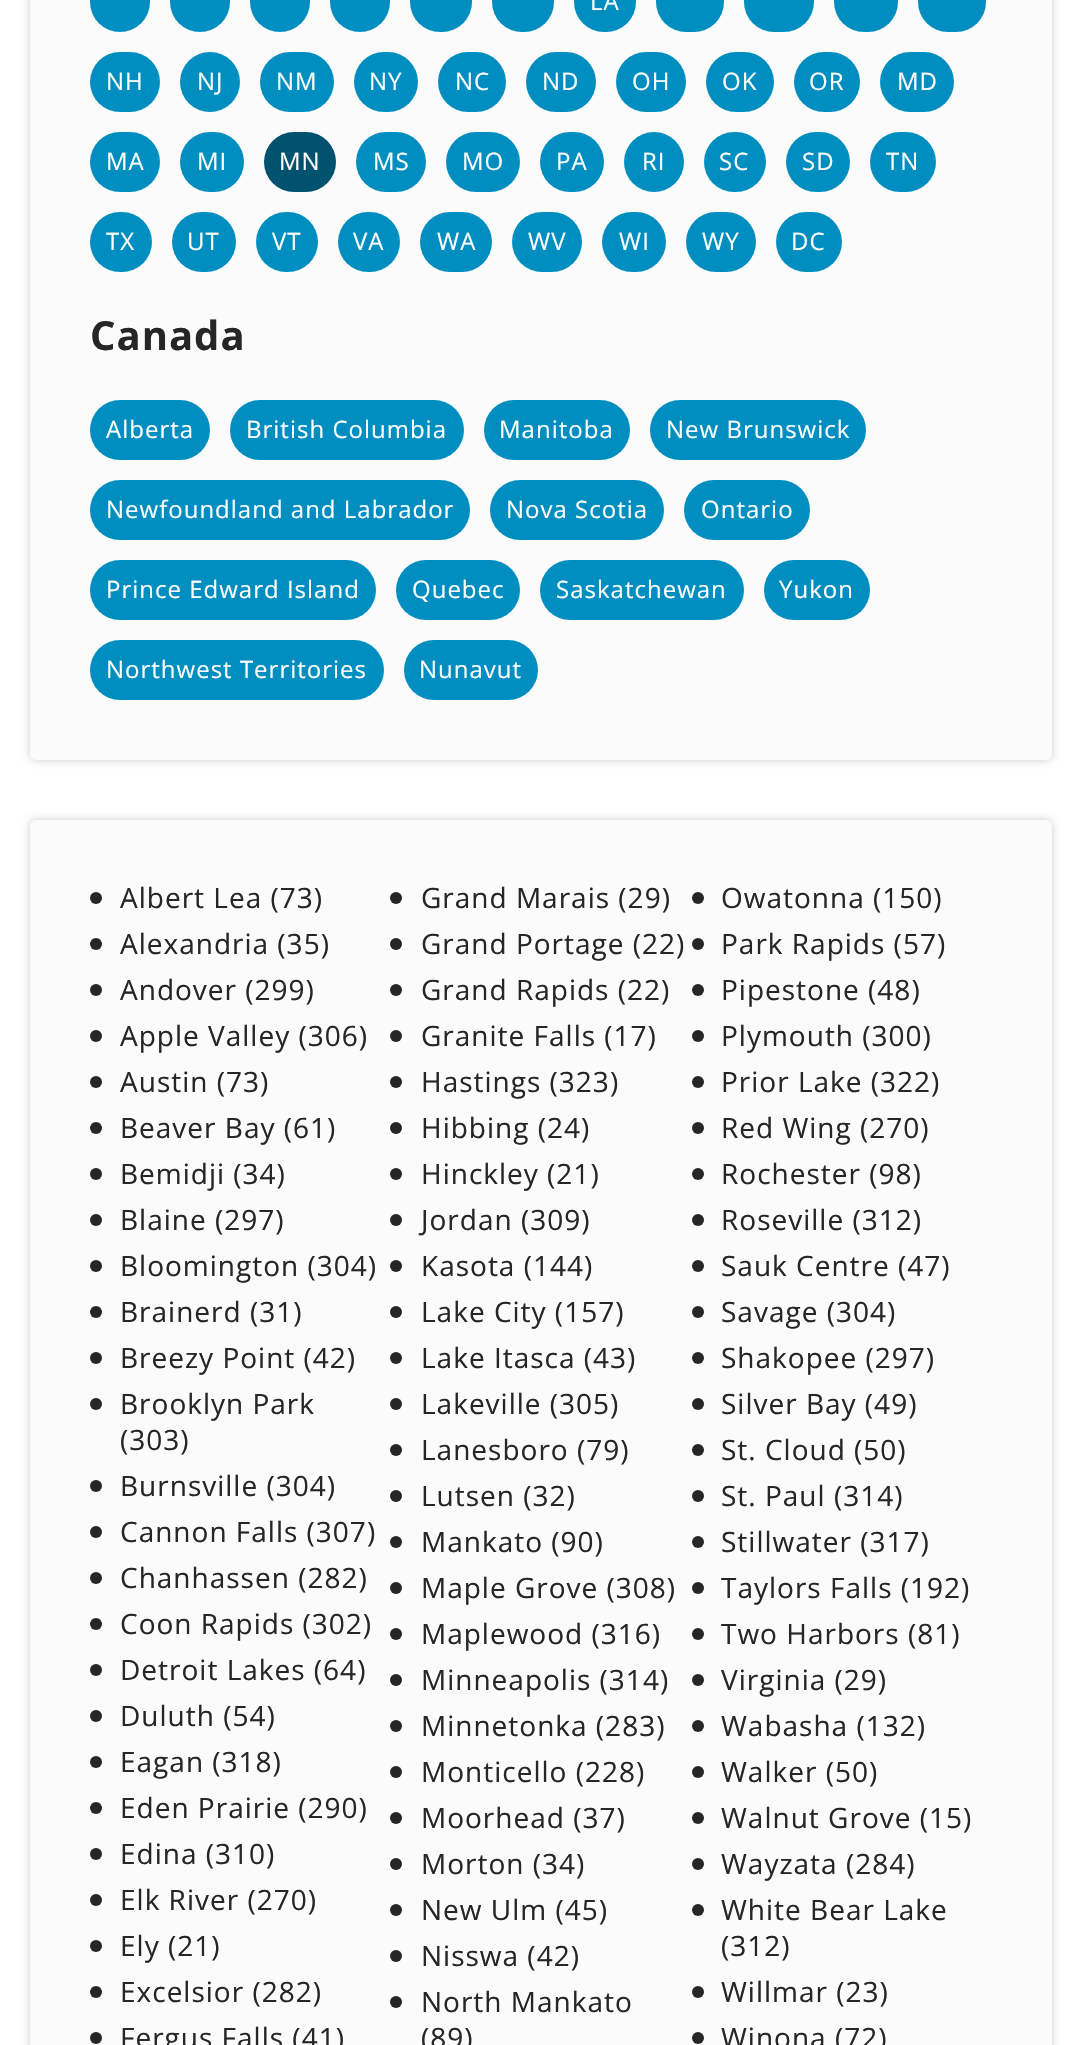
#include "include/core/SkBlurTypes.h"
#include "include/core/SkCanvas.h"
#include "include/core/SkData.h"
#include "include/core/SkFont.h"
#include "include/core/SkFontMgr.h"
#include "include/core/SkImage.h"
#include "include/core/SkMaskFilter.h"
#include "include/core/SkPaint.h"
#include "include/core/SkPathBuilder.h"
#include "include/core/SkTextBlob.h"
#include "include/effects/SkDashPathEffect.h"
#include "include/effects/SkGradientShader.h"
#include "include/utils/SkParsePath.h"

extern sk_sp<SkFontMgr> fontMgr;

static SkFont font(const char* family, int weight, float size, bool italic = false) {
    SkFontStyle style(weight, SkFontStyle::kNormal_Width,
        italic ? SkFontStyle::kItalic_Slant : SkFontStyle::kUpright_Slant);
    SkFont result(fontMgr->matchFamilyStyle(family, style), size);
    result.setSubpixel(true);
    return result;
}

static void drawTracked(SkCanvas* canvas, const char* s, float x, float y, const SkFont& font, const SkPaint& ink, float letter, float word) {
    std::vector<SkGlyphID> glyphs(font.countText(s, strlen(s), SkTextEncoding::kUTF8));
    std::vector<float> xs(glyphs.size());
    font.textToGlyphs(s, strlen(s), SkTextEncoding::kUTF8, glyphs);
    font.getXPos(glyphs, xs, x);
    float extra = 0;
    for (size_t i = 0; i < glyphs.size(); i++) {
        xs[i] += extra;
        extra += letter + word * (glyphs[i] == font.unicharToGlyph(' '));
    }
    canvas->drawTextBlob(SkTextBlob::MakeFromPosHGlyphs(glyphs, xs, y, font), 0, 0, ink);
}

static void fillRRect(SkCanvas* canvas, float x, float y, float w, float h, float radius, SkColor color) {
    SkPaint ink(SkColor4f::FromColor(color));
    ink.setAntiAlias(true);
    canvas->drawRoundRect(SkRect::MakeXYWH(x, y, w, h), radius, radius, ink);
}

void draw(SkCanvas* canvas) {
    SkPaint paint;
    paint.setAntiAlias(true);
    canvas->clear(0xFFFFFFFF);
    paint.setColor(0x33000000);
    paint.setMaskFilter(SkMaskFilter::MakeBlur(kNormal_SkBlurStyle, 4));
    canvas->drawRoundRect(SkRect::MakeXYWH(30, -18, 1022, 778), 6, 6, paint);
    paint.setMaskFilter(nullptr);
    fillRRect(canvas, 30, -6, 1022, 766, 6, 0xFFFBFBFB);
    paint.setColor(0xFF008EC0);
    canvas->drawCircle(120, 2, 30, paint);
    canvas->drawCircle(200, 2, 30, paint);
    canvas->drawCircle(280, 2, 30, paint);
    canvas->drawCircle(360, 2, 30, paint);
    fillRRect(canvas, 410, -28, 62, 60, 30, 0xFF008EC0);
    fillRRect(canvas, 492, -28, 62, 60, 30, 0xFF008EC0);
    fillRRect(canvas, 574, -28, 62, 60, 30, 0xFF008EC0);
    SkFont font1 = font("Open Sans", 400, 24);
    paint.setColor(0xFFFFFFFF);
    drawTracked(canvas, "LA", 590, 10, font1, paint, 1, 0);
    fillRRect(canvas, 656, -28, 68, 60, 30, 0xFF008EC0);
    fillRRect(canvas, 744, -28, 70, 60, 30, 0xFF008EC0);
    fillRRect(canvas, 834, -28, 64, 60, 30, 0xFF008EC0);
    fillRRect(canvas, 918, -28, 68, 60, 30, 0xFF008EC0);
    fillRRect(canvas, 90, 52, 70, 60, 30, 0xFF008EC0);
    drawTracked(canvas, "NH", 106, 90, font1, paint, 1, 0);
    paint.setColor(0xFF008EC0);
    canvas->drawCircle(210, 82, 30, paint);
    paint.setColor(0xFFFFFFFF);
    drawTracked(canvas, "NJ", 197, 90, font1, paint, 1, 0);
    fillRRect(canvas, 260, 52, 74, 60, 30, 0xFF008EC0);
    drawTracked(canvas, "NM", 276, 90, font1, paint, 1, 0);
    fillRRect(canvas, 354, 52, 64, 60, 30, 0xFF008EC0);
    drawTracked(canvas, "NY", 369, 90, font1, paint, 1, 0);
    fillRRect(canvas, 438, 52, 68, 60, 30, 0xFF008EC0);
    drawTracked(canvas, "NC", 455, 90, font1, paint, 1, 0);
    fillRRect(canvas, 526, 52, 70, 60, 30, 0xFF008EC0);
    drawTracked(canvas, "ND", 542, 90, font1, paint, 1, 0);
    fillRRect(canvas, 616, 52, 70, 60, 30, 0xFF008EC0);
    drawTracked(canvas, "OH", 632, 90, font1, paint, 1, 0);
    fillRRect(canvas, 706, 52, 68, 60, 30, 0xFF008EC0);
    drawTracked(canvas, "OK", 722, 90, font1, paint, 1, 0);
    fillRRect(canvas, 794, 52, 66, 60, 30, 0xFF008EC0);
    drawTracked(canvas, "OR", 809, 90, font1, paint, 1, 0);
    fillRRect(canvas, 880, 52, 74, 60, 30, 0xFF008EC0);
    drawTracked(canvas, "MD", 897, 90, font1, paint, 1, 0);
    fillRRect(canvas, 90, 132, 70, 60, 30, 0xFF008EC0);
    drawTracked(canvas, "MA", 106, 170, font1, paint, 1, 0);
    fillRRect(canvas, 180, 132, 64, 60, 30, 0xFF008EC0);
    drawTracked(canvas, "MI", 197, 170, font1, paint, 1, 0);
    fillRRect(canvas, 264, 132, 72, 60, 30, 0xFF00526F);
    drawTracked(canvas, "MN", 279, 170, font1, paint, 1, 0);
    fillRRect(canvas, 356, 132, 70, 60, 30, 0xFF008EC0);
    drawTracked(canvas, "MS", 373, 170, font1, paint, 1, 0);
    fillRRect(canvas, 446, 132, 74, 60, 30, 0xFF008EC0);
    drawTracked(canvas, "MO", 462, 170, font1, paint, 1, 0);
    fillRRect(canvas, 540, 132, 64, 60, 30, 0xFF008EC0);
    drawTracked(canvas, "PA", 556, 170, font1, paint, 1, 0);
    paint.setColor(0xFF008EC0);
    canvas->drawCircle(654, 162, 30, paint);
    paint.setColor(0xFFFFFFFF);
    drawTracked(canvas, "RI", 642, 170, font1, paint, 1, 0);
    fillRRect(canvas, 704, 132, 62, 60, 30, 0xFF008EC0);
    drawTracked(canvas, "SC", 719, 170, font1, paint, 1, 0);
    fillRRect(canvas, 786, 132, 64, 60, 30, 0xFF008EC0);
    drawTracked(canvas, "SD", 802, 170, font1, paint, 1, 0);
    fillRRect(canvas, 870, 132, 66, 60, 30, 0xFF008EC0);
    drawTracked(canvas, "TN", 886, 170, font1, paint, 1, 0);
    fillRRect(canvas, 90, 212, 62, 60, 30, 0xFF008EC0);
    drawTracked(canvas, "TX", 106, 250, font1, paint, 1, 0);
    fillRRect(canvas, 172, 212, 64, 60, 30, 0xFF008EC0);
    drawTracked(canvas, "UT", 187, 250, font1, paint, 1, 0);
    fillRRect(canvas, 256, 212, 62, 60, 30, 0xFF008EC0);
    drawTracked(canvas, "VT", 272, 250, font1, paint, 1, 0);
    fillRRect(canvas, 338, 212, 62, 60, 30, 0xFF008EC0);
    drawTracked(canvas, "VA", 353, 250, font1, paint, 1, 0);
    fillRRect(canvas, 420, 212, 72, 60, 30, 0xFF008EC0);
    drawTracked(canvas, "WA", 437, 250, font1, paint, 1, 0);
    fillRRect(canvas, 512, 212, 70, 60, 30, 0xFF008EC0);
    drawTracked(canvas, "WV", 528, 250, font1, paint, 1, 0);
    fillRRect(canvas, 602, 212, 64, 60, 30, 0xFF008EC0);
    drawTracked(canvas, "WI", 619, 250, font1, paint, 1, 0);
    fillRRect(canvas, 686, 212, 70, 60, 30, 0xFF008EC0);
    drawTracked(canvas, "WY", 702, 250, font1, paint, 1, 0);
    fillRRect(canvas, 776, 212, 66, 60, 30, 0xFF008EC0);
    drawTracked(canvas, "DC", 791, 250, font1, paint, 1, 0);
    SkFont font2 = font("Open Sans", 700, 40);
    paint.setColor(0xFF262626);
    drawTracked(canvas, "Canada", 90, 350, font2, paint, 1, 0);
    fillRRect(canvas, 90, 400, 120, 60, 30, 0xFF008EC0);
    paint.setColor(0xFFFFFFFF);
    drawTracked(canvas, "Alberta", 106, 438, font1, paint, 1, 0);
    fillRRect(canvas, 230, 400, 234, 60, 30, 0xFF008EC0);
    drawTracked(canvas, "British Columbia", 246, 438, font1, paint, 1, 0);
    fillRRect(canvas, 484, 400, 146, 60, 30, 0xFF008EC0);
    drawTracked(canvas, "Manitoba", 499, 438, font1, paint, 1, 0);
    fillRRect(canvas, 650, 400, 216, 60, 30, 0xFF008EC0);
    drawTracked(canvas, "New Brunswick", 666, 438, font1, paint, 1, 0);
    fillRRect(canvas, 90, 480, 380, 60, 30, 0xFF008EC0);
    drawTracked(canvas, "Newfoundland and Labrador", 106, 518, font1, paint, 1, 0);
    fillRRect(canvas, 490, 480, 174, 60, 30, 0xFF008EC0);
    drawTracked(canvas, "Nova Scotia", 506, 518, font1, paint, 1, 0);
    fillRRect(canvas, 684, 480, 126, 60, 30, 0xFF008EC0);
    drawTracked(canvas, "Ontario", 701, 518, font1, paint, 1, 0);
    fillRRect(canvas, 90, 560, 286, 60, 30, 0xFF008EC0);
    drawTracked(canvas, "Prince Edward Island", 106, 598, font1, paint, 1, 0);
    fillRRect(canvas, 396, 560, 124, 60, 30, 0xFF008EC0);
    drawTracked(canvas, "Quebec", 412, 598, font1, paint, 1, 0);
    fillRRect(canvas, 540, 560, 204, 60, 30, 0xFF008EC0);
    drawTracked(canvas, "Saskatchewan", 556, 598, font1, paint, 1, 0);
    fillRRect(canvas, 764, 560, 106, 60, 30, 0xFF008EC0);
    drawTracked(canvas, "Yukon", 779, 598, font1, paint, 1, 0);
    fillRRect(canvas, 90, 640, 294, 60, 30, 0xFF008EC0);
    drawTracked(canvas, "Northwest Territories", 106, 678, font1, paint, 1, 0);
    fillRRect(canvas, 404, 640, 134, 60, 30, 0xFF008EC0);
    drawTracked(canvas, "Nunavut", 419, 678, font1, paint, 1, 0);
    paint.setColor(0x33000000);
    paint.setMaskFilter(SkMaskFilter::MakeBlur(kNormal_SkBlurStyle, 4));
    canvas->drawRoundRect(SkRect::MakeXYWH(30, 820, 1022, 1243), 6, 6, paint);
    paint.setMaskFilter(nullptr);
    fillRRect(canvas, 30, 820, 1022, 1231, 6, 0xFFFBFBFB);
    paint.setColor(0xFF262626);
    canvas->drawCircle(96, 898, 6, paint);
    SkFont font3 = font("Open Sans", 400, 28);
    drawTracked(canvas, "Albert Lea (73)", 120, 908, font3, paint, 1, 0);
    canvas->drawCircle(96, 944, 6, paint);
    drawTracked(canvas, "Alexandria (35)", 120, 954, font3, paint, 1, 0);
    canvas->drawCircle(96, 990, 6, paint);
    drawTracked(canvas, "Andover (299)", 120, 1000, font3, paint, 1, 0);
    canvas->drawCircle(96, 1036, 6, paint);
    drawTracked(canvas, "Apple Valley (306)", 120, 1046, font3, paint, 1, 0);
    canvas->drawCircle(96, 1082, 6, paint);
    drawTracked(canvas, "Austin (73)", 120, 1092, font3, paint, 1, 0);
    canvas->drawCircle(96, 1128, 6, paint);
    drawTracked(canvas, "Beaver Bay (61)", 120, 1138, font3, paint, 1, 0);
    canvas->drawCircle(96, 1174, 6, paint);
    drawTracked(canvas, "Bemidji (34)", 120, 1184, font3, paint, 1, 0);
    canvas->drawCircle(96, 1220, 6, paint);
    drawTracked(canvas, "Blaine (297)", 120, 1230, font3, paint, 1, 0);
    canvas->drawCircle(96, 1266, 6, paint);
    drawTracked(canvas, "Bloomington (304)", 120, 1276, font3, paint, 1, 0);
    canvas->drawCircle(96, 1312, 6, paint);
    drawTracked(canvas, "Brainerd (31)", 120, 1322, font3, paint, 1, 0);
    canvas->drawCircle(96, 1358, 6, paint);
    drawTracked(canvas, "Breezy Point (42)", 120, 1368, font3, paint, 1, 0);
    canvas->drawCircle(96, 1404, 6, paint);
    drawTracked(canvas, "Brooklyn Park", 120, 1414, font3, paint, 1, 0);
    drawTracked(canvas, "(303)", 120, 1450, font3, paint, 1, 0);
    canvas->drawCircle(96, 1486, 6, paint);
    drawTracked(canvas, "Burnsville (304)", 120, 1496, font3, paint, 1, 0);
    canvas->drawCircle(96, 1532, 6, paint);
    drawTracked(canvas, "Cannon Falls (307)", 120, 1542, font3, paint, 1, 0);
    canvas->drawCircle(96, 1578, 6, paint);
    drawTracked(canvas, "Chanhassen (282)", 120, 1588, font3, paint, 1, 0);
    canvas->drawCircle(96, 1624, 6, paint);
    drawTracked(canvas, "Coon Rapids (302)", 120, 1634, font3, paint, 1, 0);
    canvas->drawCircle(96, 1670, 6, paint);
    drawTracked(canvas, "Detroit Lakes (64)", 120, 1680, font3, paint, 1, 0);
    canvas->drawCircle(96, 1716, 6, paint);
    drawTracked(canvas, "Duluth (54)", 120, 1726, font3, paint, 1, 0);
    canvas->drawCircle(96, 1762, 6, paint);
    drawTracked(canvas, "Eagan (318)", 120, 1772, font3, paint, 1, 0);
    canvas->drawCircle(96, 1808, 6, paint);
    drawTracked(canvas, "Eden Prairie (290)", 120, 1818, font3, paint, 1, 0);
    canvas->drawCircle(96, 1854, 6, paint);
    drawTracked(canvas, "Edina (310)", 120, 1864, font3, paint, 1, 0);
    canvas->drawCircle(96, 1900, 6, paint);
    drawTracked(canvas, "Elk River (270)", 120, 1910, font3, paint, 1, 0);
    canvas->drawCircle(96, 1946, 6, paint);
    drawTracked(canvas, "Ely (21)", 120, 1956, font3, paint, 1, 0);
    canvas->drawCircle(96, 1992, 6, paint);
    drawTracked(canvas, "Excelsior (282)", 120, 2002, font3, paint, 1, 0);
    canvas->drawCircle(96, 2038, 6, paint);
    drawTracked(canvas, "Fergus Falls (41)", 120, 2048, font3, paint, 1, 0);
    canvas->drawCircle(396, 898, 6, paint);
    drawTracked(canvas, "Grand Marais (29)", 421, 908, font3, paint, 1, 0);
    canvas->drawCircle(396, 944, 6, paint);
    drawTracked(canvas, "Grand Portage (22)", 421, 954, font3, paint, 1, 0);
    canvas->drawCircle(396, 990, 6, paint);
    drawTracked(canvas, "Grand Rapids (22)", 421, 1000, font3, paint, 1, 0);
    canvas->drawCircle(396, 1036, 6, paint);
    drawTracked(canvas, "Granite Falls (17)", 421, 1046, font3, paint, 1, 0);
    canvas->drawCircle(396, 1082, 6, paint);
    drawTracked(canvas, "Hastings (323)", 421, 1092, font3, paint, 1, 0);
    canvas->drawCircle(396, 1128, 6, paint);
    drawTracked(canvas, "Hibbing (24)", 421, 1138, font3, paint, 1, 0);
    canvas->drawCircle(396, 1174, 6, paint);
    drawTracked(canvas, "Hinckley (21)", 421, 1184, font3, paint, 1, 0);
    canvas->drawCircle(396, 1220, 6, paint);
    drawTracked(canvas, "Jordan (309)", 421, 1230, font3, paint, 1, 0);
    canvas->drawCircle(396, 1266, 6, paint);
    drawTracked(canvas, "Kasota (144)", 421, 1276, font3, paint, 1, 0);
    canvas->drawCircle(396, 1312, 6, paint);
    drawTracked(canvas, "Lake City (157)", 421, 1322, font3, paint, 1, 0);
    canvas->drawCircle(396, 1358, 6, paint);
    drawTracked(canvas, "Lake Itasca (43)", 421, 1368, font3, paint, 1, 0);
    canvas->drawCircle(396, 1404, 6, paint);
    drawTracked(canvas, "Lakeville (305)", 421, 1414, font3, paint, 1, 0);
    canvas->drawCircle(396, 1450, 6, paint);
    drawTracked(canvas, "Lanesboro (79)", 421, 1460, font3, paint, 1, 0);
    canvas->drawCircle(396, 1496, 6, paint);
    drawTracked(canvas, "Lutsen (32)", 421, 1506, font3, paint, 1, 0);
    canvas->drawCircle(396, 1542, 6, paint);
    drawTracked(canvas, "Mankato (90)", 421, 1552, font3, paint, 1, 0);
    canvas->drawCircle(396, 1588, 6, paint);
    drawTracked(canvas, "Maple Grove (308)", 421, 1598, font3, paint, 1, 0);
    canvas->drawCircle(396, 1634, 6, paint);
    drawTracked(canvas, "Maplewood (316)", 421, 1644, font3, paint, 1, 0);
    canvas->drawCircle(396, 1680, 6, paint);
    drawTracked(canvas, "Minneapolis (314)", 421, 1690, font3, paint, 1, 0);
    canvas->drawCircle(396, 1726, 6, paint);
    drawTracked(canvas, "Minnetonka (283)", 421, 1736, font3, paint, 1, 0);
    canvas->drawCircle(396, 1772, 6, paint);
    drawTracked(canvas, "Monticello (228)", 421, 1782, font3, paint, 1, 0);
    canvas->drawCircle(396, 1818, 6, paint);
    drawTracked(canvas, "Moorhead (37)", 421, 1828, font3, paint, 1, 0);
    canvas->drawCircle(396, 1864, 6, paint);
    drawTracked(canvas, "Morton (34)", 421, 1874, font3, paint, 1, 0);
    canvas->drawCircle(396, 1910, 6, paint);
    drawTracked(canvas, "New Ulm (45)", 421, 1920, font3, paint, 1, 0);
    canvas->drawCircle(396, 1956, 6, paint);
    drawTracked(canvas, "Nisswa (42)", 421, 1966, font3, paint, 1, 0);
    canvas->drawCircle(396, 2002, 6, paint);
    drawTracked(canvas, "North Mankato", 421, 2012, font3, paint, 1, 0);
    drawTracked(canvas, "(89)", 421, 2048, font3, paint, 1, 0);
    canvas->drawCircle(698, 898, 6, paint);
    drawTracked(canvas, "Owatonna (150)", 721, 908, font3, paint, 1, 0);
    canvas->drawCircle(698, 944, 6, paint);
    drawTracked(canvas, "Park Rapids (57)", 721, 954, font3, paint, 1, 0);
    canvas->drawCircle(698, 990, 6, paint);
    drawTracked(canvas, "Pipestone (48)", 721, 1000, font3, paint, 1, 0);
    canvas->drawCircle(698, 1036, 6, paint);
    drawTracked(canvas, "Plymouth (300)", 721, 1046, font3, paint, 1, 0);
    canvas->drawCircle(698, 1082, 6, paint);
    drawTracked(canvas, "Prior Lake (322)", 721, 1092, font3, paint, 1, 0);
    canvas->drawCircle(698, 1128, 6, paint);
    drawTracked(canvas, "Red Wing (270)", 721, 1138, font3, paint, 1, 0);
    canvas->drawCircle(698, 1174, 6, paint);
    drawTracked(canvas, "Rochester (98)", 721, 1184, font3, paint, 1, 0);
    canvas->drawCircle(698, 1220, 6, paint);
    drawTracked(canvas, "Roseville (312)", 721, 1230, font3, paint, 1, 0);
    canvas->drawCircle(698, 1266, 6, paint);
    drawTracked(canvas, "Sauk Centre (47)", 721, 1276, font3, paint, 1, 0);
    canvas->drawCircle(698, 1312, 6, paint);
    drawTracked(canvas, "Savage (304)", 721, 1322, font3, paint, 1, 0);
    canvas->drawCircle(698, 1358, 6, paint);
    drawTracked(canvas, "Shakopee (297)", 721, 1368, font3, paint, 1, 0);
    canvas->drawCircle(698, 1404, 6, paint);
    drawTracked(canvas, "Silver Bay (49)", 721, 1414, font3, paint, 1, 0);
    canvas->drawCircle(698, 1450, 6, paint);
    drawTracked(canvas, "St. Cloud (50)", 721, 1460, font3, paint, 1, 0);
    canvas->drawCircle(698, 1496, 6, paint);
    drawTracked(canvas, "St. Paul (314)", 721, 1506, font3, paint, 1, 0);
    canvas->drawCircle(698, 1542, 6, paint);
    drawTracked(canvas, "Stillwater (317)", 721, 1552, font3, paint, 1, 0);
    canvas->drawCircle(698, 1588, 6, paint);
    drawTracked(canvas, "Taylors Falls (192)", 721, 1598, font3, paint, 1, 0);
    canvas->drawCircle(698, 1634, 6, paint);
    drawTracked(canvas, "Two Harbors (81)", 721, 1644, font3, paint, 1, 0);
    canvas->drawCircle(698, 1680, 6, paint);
    drawTracked(canvas, "Virginia (29)", 721, 1690, font3, paint, 1, 0);
    canvas->drawCircle(698, 1726, 6, paint);
    drawTracked(canvas, "Wabasha (132)", 721, 1736, font3, paint, 1, 0);
    canvas->drawCircle(698, 1772, 6, paint);
    drawTracked(canvas, "Walker (50)", 721, 1782, font3, paint, 1, 0);
    canvas->drawCircle(698, 1818, 6, paint);
    drawTracked(canvas, "Walnut Grove (15)", 721, 1828, font3, paint, 1, 0);
    canvas->drawCircle(698, 1864, 6, paint);
    drawTracked(canvas, "Wayzata (284)", 721, 1874, font3, paint, 1, 0);
    canvas->drawCircle(698, 1910, 6, paint);
    drawTracked(canvas, "White Bear Lake", 721, 1920, font3, paint, 1, 0);
    drawTracked(canvas, "(312)", 721, 1956, font3, paint, 1, 0);
    canvas->drawCircle(698, 1992, 6, paint);
    drawTracked(canvas, "Willmar (23)", 721, 2002, font3, paint, 1, 0);
    canvas->drawCircle(698, 2038, 6, paint);
    drawTracked(canvas, "Winona (72)", 721, 2048, font3, paint, 1, 0);
}
